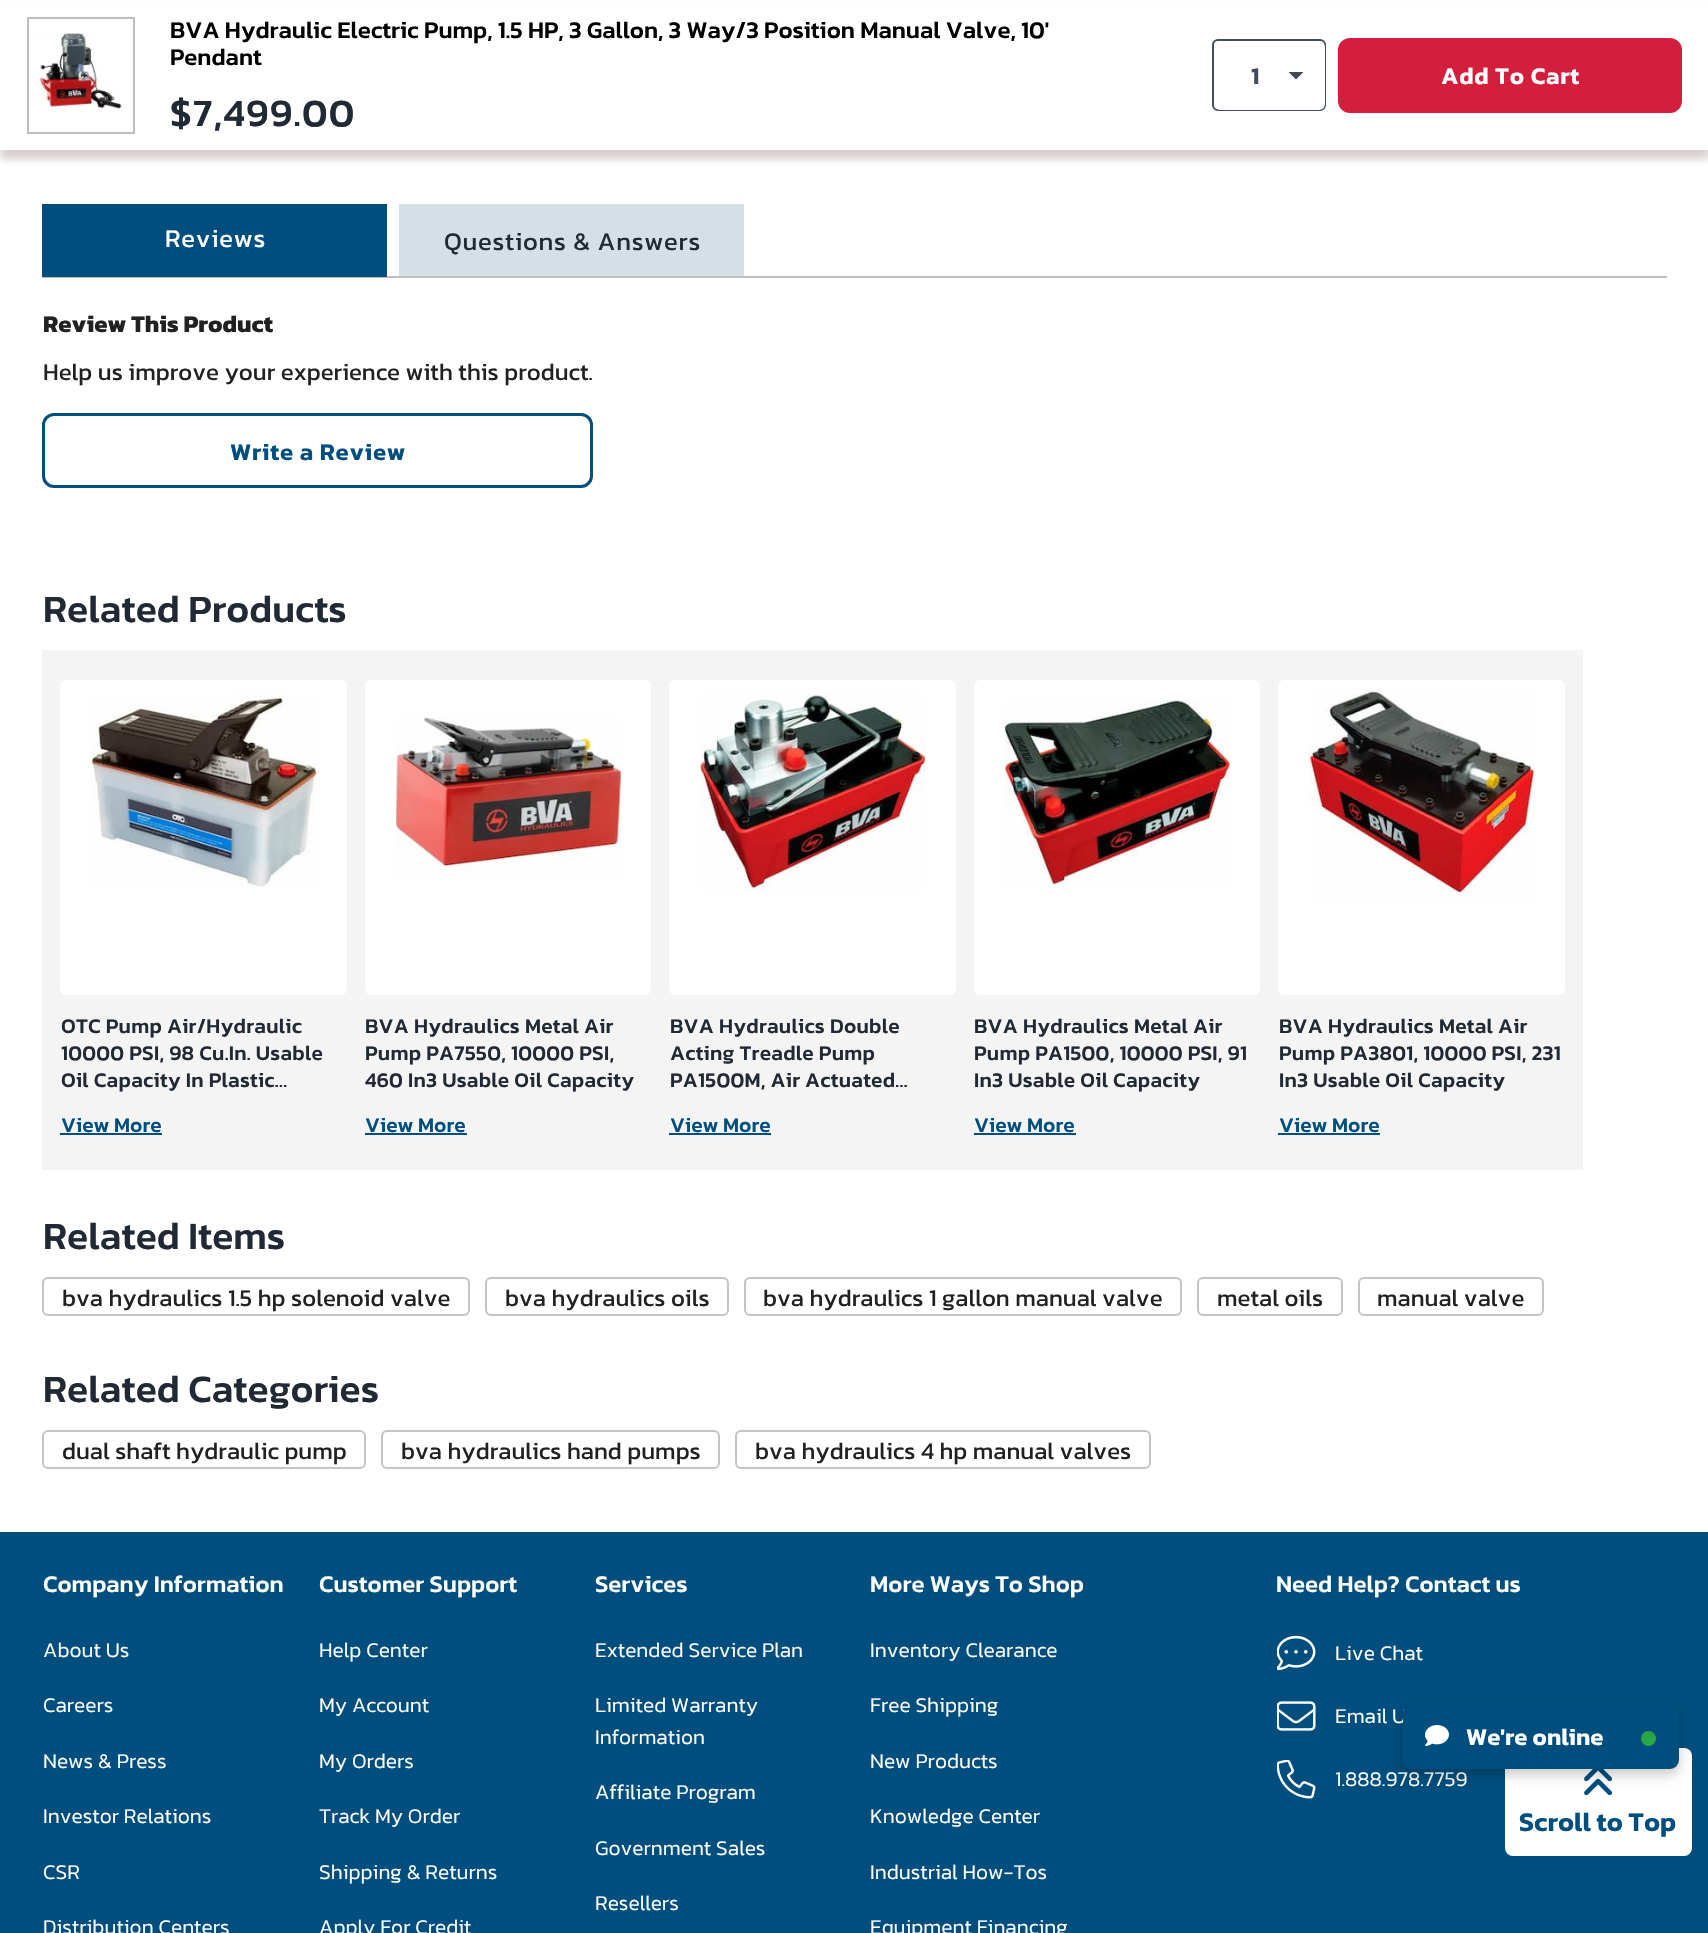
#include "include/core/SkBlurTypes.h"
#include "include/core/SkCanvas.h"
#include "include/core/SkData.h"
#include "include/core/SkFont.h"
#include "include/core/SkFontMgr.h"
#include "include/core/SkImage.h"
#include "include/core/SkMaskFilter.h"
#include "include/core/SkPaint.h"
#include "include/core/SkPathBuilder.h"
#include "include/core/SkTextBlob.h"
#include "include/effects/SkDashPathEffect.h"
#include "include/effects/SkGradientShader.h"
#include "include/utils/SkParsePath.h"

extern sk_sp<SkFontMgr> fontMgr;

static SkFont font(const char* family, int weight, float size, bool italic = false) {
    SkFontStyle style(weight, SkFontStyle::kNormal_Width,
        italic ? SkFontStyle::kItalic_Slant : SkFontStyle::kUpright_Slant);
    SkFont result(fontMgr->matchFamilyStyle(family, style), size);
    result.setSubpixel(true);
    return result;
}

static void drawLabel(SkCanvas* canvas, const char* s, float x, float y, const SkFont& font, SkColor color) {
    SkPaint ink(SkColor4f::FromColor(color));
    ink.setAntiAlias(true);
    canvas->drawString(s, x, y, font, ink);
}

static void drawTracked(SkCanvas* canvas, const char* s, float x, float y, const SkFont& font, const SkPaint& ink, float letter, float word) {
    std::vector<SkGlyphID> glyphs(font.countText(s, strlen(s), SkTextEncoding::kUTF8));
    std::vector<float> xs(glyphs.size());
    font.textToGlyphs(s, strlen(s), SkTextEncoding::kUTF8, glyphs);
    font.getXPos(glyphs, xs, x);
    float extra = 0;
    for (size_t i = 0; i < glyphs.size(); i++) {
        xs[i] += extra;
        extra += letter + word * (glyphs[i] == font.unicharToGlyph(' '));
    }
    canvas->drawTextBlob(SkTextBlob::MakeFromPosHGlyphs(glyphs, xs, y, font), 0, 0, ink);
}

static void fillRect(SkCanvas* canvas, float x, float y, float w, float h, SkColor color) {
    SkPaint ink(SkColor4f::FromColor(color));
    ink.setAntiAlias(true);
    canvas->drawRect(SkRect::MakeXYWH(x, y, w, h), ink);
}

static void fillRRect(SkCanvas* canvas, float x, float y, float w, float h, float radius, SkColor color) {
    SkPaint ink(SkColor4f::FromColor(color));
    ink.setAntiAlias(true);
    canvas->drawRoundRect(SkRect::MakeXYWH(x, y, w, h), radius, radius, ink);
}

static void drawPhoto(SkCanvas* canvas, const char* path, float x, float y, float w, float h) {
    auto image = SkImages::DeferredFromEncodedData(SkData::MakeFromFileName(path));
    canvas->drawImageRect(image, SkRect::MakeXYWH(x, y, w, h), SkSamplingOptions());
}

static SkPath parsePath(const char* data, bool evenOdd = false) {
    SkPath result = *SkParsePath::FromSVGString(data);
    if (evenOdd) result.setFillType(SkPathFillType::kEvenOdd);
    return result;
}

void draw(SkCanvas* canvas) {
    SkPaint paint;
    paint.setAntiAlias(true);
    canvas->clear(0xFFFFFFFF);
    paint.setColor(0xBFCBBDBD);
    paint.setMaskFilter(SkMaskFilter::MakeBlur(kNormal_SkBlurStyle, 4));
    canvas->drawRect(SkRect::MakeXYWH(0, 9, 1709, 150), paint);
    paint.setMaskFilter(nullptr);
    fillRect(canvas, 0, 3, 1708, 147, 0xFFFFFFFF);
    paint.setStroke(true);
    paint.setStrokeWidth(2);
    paint.setColor(0xFFBCBEC0);
    canvas->drawRect(SkRect::MakeXYWH(28, 18, 106, 115), paint);
    drawPhoto(canvas, "assets/img1.png", 36, 33, 86, 79);
    SkFont font1 = font("Kanit", 500, 24);
    drawLabel(canvas, "BVA Hydraulic Electric Pump, 1.5 HP, 3 Gallon, 3 Way/3 Position Manual Valve, 10'", 170, 38, font1, 0xFF000000);
    drawLabel(canvas, "Pendant", 170, 65, font1, 0xFF000000);
    SkFont font2 = font("Kanit", 500, 39);
    paint.setStroke(false);
    paint.setColor(0xFF212934);
    drawTracked(canvas, "$7,499.00", 170, 126, font2, paint, 1.25f, 0);
    paint.setStroke(true);
    paint.setColor(0xFF424C5B);
    canvas->drawRoundRect(SkRect::MakeXYWH(1213, 40, 112, 70), 5, 5, paint);
    fillRRect(canvas, 1214, 41, 111, 69, 6, 0xFFFFFFFF);
    SkFont font3 = font("Kanit", 600, 24);
    drawLabel(canvas, "1", 1251, 84, font3, 0xFF424C5B);
    paint.setStroke(false);
    canvas->drawPath(parsePath("M1288.5 72L1296 79.5L1303.5 72Z"), paint);
    fillRRect(canvas, 1338, 38, 344, 75, 12, 0xFFD41E3D);
    paint.setColor(0xFFFFFFFF);
    drawTracked(canvas, "Add To Cart", 1441, 84, font3, paint, 0.75f, 0);
    fillRect(canvas, 42, 276, 1625, 2, 0xFFBCBEC0);
    fillRect(canvas, 42, 204, 345, 73, 0xFF004E7D);
    SkFont font4 = font("Kanit", 400, 25.5f);
    drawTracked(canvas, "Reviews", 165, 247, font4, paint, 0.75f, 0);
    fillRect(canvas, 399, 204, 345, 72, 0xFFD5E0E6);
    paint.setColor(0xFF212934);
    drawTracked(canvas, "Questions & Answers", 444, 250, font4, paint, 0.75f, 0);
    SkFont font5 = font("Kanit", 700, 24);
    drawLabel(canvas, "Review This Product", 43, 332, font5, 0xFF212121);
    SkFont font6 = font("Kanit", 400, 24);
    drawLabel(canvas, "Help us improve your experience with this product.", 43, 380, font6, 0xFF212121);
    paint.setStroke(true);
    paint.setStrokeWidth(3);
    paint.setColor(0xFF004E7D);
    canvas->drawRoundRect(SkRect::MakeXYWH(43.5f, 414.5f, 548, 72), 10.5f, 10.5f, paint);
    paint.setStroke(false);
    drawTracked(canvas, "Write a Review", 230, 460, font3, paint, 0.75f, 0);
    drawLabel(canvas, "Related Products", 43, 622, font2, 0xFF212934);
    fillRect(canvas, 42, 650, 1541, 520, 0xFFF4F4F4);
    fillRRect(canvas, 60, 680, 287, 315, 6, 0xFFFFFFFF);
    drawPhoto(canvas, "assets/img2.png", 91, 694, 226, 194);
    SkFont font7 = font("Kanit", 500, 21);
    paint.setColor(0xFF212934);
    drawTracked(canvas, "OTC Pump Air/Hydraulic", 61, 1033, font7, paint, 0.25f, 0);
    drawTracked(canvas, "10000 PSI, 98 Cu.In. Usable", 61, 1060, font7, paint, 0.25f, 0);
    drawTracked(canvas, "Oil Capacity In Plastic…", 61, 1087, font7, paint, 0.25f, 0);
    drawLabel(canvas, "View More", 61, 1132, font7, 0xFF004E7D);
    fillRect(canvas, 60, 1133, 102, 2, 0xFF004E7D);
    fillRRect(canvas, 365, 680, 286, 315, 6, 0xFFFFFFFF);
    drawPhoto(canvas, "assets/img3.png", 396, 717, 225, 160);
    drawTracked(canvas, "BVA Hydraulics Metal Air", 365, 1033, font7, paint, 0.25f, 0);
    drawTracked(canvas, "Pump PA7550, 10000 PSI,", 365, 1060, font7, paint, 0.25f, 0);
    drawTracked(canvas, "460 In3 Usable Oil Capacity", 365, 1087, font7, paint, 0.25f, 0);
    drawLabel(canvas, "View More", 365, 1132, font7, 0xFF004E7D);
    fillRect(canvas, 365, 1133, 102, 2, 0xFF004E7D);
    fillRRect(canvas, 669, 680, 287, 315, 6, 0xFFFFFFFF);
    drawPhoto(canvas, "assets/img4.png", 700, 693, 226, 198);
    drawTracked(canvas, "BVA Hydraulics Double", 670, 1033, font7, paint, 0.25f, 0);
    drawTracked(canvas, "Acting Treadle Pump", 670, 1060, font7, paint, 0.25f, 0);
    drawTracked(canvas, "PA1500M, Air Actuated…", 670, 1087, font7, paint, 0.25f, 0);
    drawLabel(canvas, "View More", 670, 1132, font7, 0xFF004E7D);
    fillRect(canvas, 669, 1133, 102, 2, 0xFF004E7D);
    fillRRect(canvas, 974, 680, 286, 315, 6, 0xFFFFFFFF);
    drawPhoto(canvas, "assets/img5.png", 1005, 699, 225, 191);
    drawTracked(canvas, "BVA Hydraulics Metal Air", 974, 1033, font7, paint, 0.25f, 0);
    drawTracked(canvas, "Pump PA1500, 10000 PSI, 91", 974, 1060, font7, paint, 0.25f, 0);
    drawTracked(canvas, "In3 Usable Oil Capacity", 974, 1087, font7, paint, 0.25f, 0);
    drawLabel(canvas, "View More", 974, 1132, font7, 0xFF004E7D);
    fillRect(canvas, 974, 1133, 102, 2, 0xFF004E7D);
    fillRRect(canvas, 1278, 680, 287, 315, 6, 0xFFFFFFFF);
    drawPhoto(canvas, "assets/img6.png", 1309, 687, 226, 217);
    drawTracked(canvas, "BVA Hydraulics Metal Air", 1279, 1033, font7, paint, 0.25f, 0);
    drawTracked(canvas, "Pump PA3801, 10000 PSI, 231", 1279, 1060, font7, paint, 0.25f, 0);
    drawTracked(canvas, "In3 Usable Oil Capacity", 1279, 1087, font7, paint, 0.25f, 0);
    drawLabel(canvas, "View More", 1279, 1132, font7, 0xFF004E7D);
    fillRect(canvas, 1278, 1133, 102, 2, 0xFF004E7D);
    drawLabel(canvas, "Related Items", 43, 1249, font2, 0xFF212934);
    paint.setStroke(true);
    paint.setStrokeWidth(2);
    paint.setColor(0xFFC4C4C4);
    canvas->drawRoundRect(SkRect::MakeXYWH(43, 1278, 426, 37), 5, 5, paint);
    drawLabel(canvas, "bva hydraulics 1.5 hp solenoid valve", 62, 1306, font6, 0xFF212121);
    canvas->drawRoundRect(SkRect::MakeXYWH(486, 1278, 242, 37), 5, 5, paint);
    drawLabel(canvas, "bva hydraulics oils", 505, 1306, font6, 0xFF212121);
    canvas->drawRoundRect(SkRect::MakeXYWH(745, 1278, 436, 37), 5, 5, paint);
    drawLabel(canvas, "bva hydraulics 1 gallon manual valve", 763, 1306, font6, 0xFF212121);
    canvas->drawRoundRect(SkRect::MakeXYWH(1198, 1278, 144, 37), 5, 5, paint);
    drawLabel(canvas, "metal oils", 1217, 1306, font6, 0xFF212121);
    canvas->drawRoundRect(SkRect::MakeXYWH(1359, 1278, 184, 37), 5, 5, paint);
    drawLabel(canvas, "manual valve", 1377, 1306, font6, 0xFF212121);
    drawLabel(canvas, "Related Categories", 43, 1402, font2, 0xFF212934);
    canvas->drawRoundRect(SkRect::MakeXYWH(43, 1431, 322, 37), 5, 5, paint);
    drawLabel(canvas, "dual shaft hydraulic pump", 62, 1459, font6, 0xFF212121);
    canvas->drawRoundRect(SkRect::MakeXYWH(382, 1431, 337, 37), 5, 5, paint);
    drawLabel(canvas, "bva hydraulics hand pumps", 401, 1459, font6, 0xFF212121);
    canvas->drawRoundRect(SkRect::MakeXYWH(736, 1431, 414, 37), 5, 5, paint);
    drawLabel(canvas, "bva hydraulics 4 hp manual valves", 755, 1459, font6, 0xFF212121);
    fillRect(canvas, 0, 1532, 1708, 401, 0xFF004E7D);
    fillRRect(canvas, 1505, 1748, 187, 108, 8, 0xFFFFFFFF);
    drawPhoto(canvas, "assets/img7.png", 1584, 1769, 28, 27);
    SkFont font8 = font("Kanit", 600, 27);
    drawLabel(canvas, "Scroll to Top", 1519, 1831, font8, 0xFF004E7D);
    drawLabel(canvas, "Company Information", 43, 1592, font1, 0xFFFFFFFF);
    SkFont font9 = font("Kanit", 300, 21);
    drawLabel(canvas, "About Us", 43, 1657, font9, 0xFFFFFFFF);
    drawLabel(canvas, "Careers", 43, 1712, font9, 0xFFFFFFFF);
    drawLabel(canvas, "News & Press", 43, 1768, font9, 0xFFFFFFFF);
    drawLabel(canvas, "Investor Relations", 43, 1823, font9, 0xFFFFFFFF);
    drawLabel(canvas, "CSR", 43, 1879, font9, 0xFFFFFFFF);
    drawLabel(canvas, "Distribution Centers", 43, 1934, font9, 0xFFFFFFFF);
    drawLabel(canvas, "Customer Support", 319, 1592, font1, 0xFFFFFFFF);
    drawLabel(canvas, "Help Center", 319, 1657, font9, 0xFFFFFFFF);
    drawLabel(canvas, "My Account", 319, 1712, font9, 0xFFFFFFFF);
    drawLabel(canvas, "My Orders", 319, 1768, font9, 0xFFFFFFFF);
    drawLabel(canvas, "Track My Order", 319, 1823, font9, 0xFFFFFFFF);
    drawLabel(canvas, "Shipping & Returns", 319, 1879, font9, 0xFFFFFFFF);
    drawLabel(canvas, "Apply For Credit", 319, 1934, font9, 0xFFFFFFFF);
    drawLabel(canvas, "Services", 595, 1592, font1, 0xFFFFFFFF);
    drawLabel(canvas, "Extended Service Plan", 595, 1657, font9, 0xFFFFFFFF);
    drawLabel(canvas, "Limited Warranty", 595, 1712, font9, 0xFFFFFFFF);
    drawLabel(canvas, "Information", 595, 1744, font9, 0xFFFFFFFF);
    drawLabel(canvas, "Affiliate Program", 595, 1799, font9, 0xFFFFFFFF);
    drawLabel(canvas, "Government Sales", 595, 1855, font9, 0xFFFFFFFF);
    drawLabel(canvas, "Resellers", 595, 1910, font9, 0xFFFFFFFF);
    drawLabel(canvas, "More Ways To Shop", 870, 1592, font1, 0xFFFFFFFF);
    drawLabel(canvas, "Inventory Clearance", 870, 1657, font9, 0xFFFFFFFF);
    drawLabel(canvas, "Free Shipping", 870, 1712, font9, 0xFFFFFFFF);
    drawLabel(canvas, "New Products", 870, 1768, font9, 0xFFFFFFFF);
    drawLabel(canvas, "Knowledge Center", 870, 1823, font9, 0xFFFFFFFF);
    drawLabel(canvas, "Industrial How-Tos", 870, 1879, font9, 0xFFFFFFFF);
    drawLabel(canvas, "Equipment Financing", 870, 1934, font9, 0xFFFFFFFF);
    drawLabel(canvas, "Need Help? Contact us", 1276, 1592, font1, 0xFFFFFFFF);
    drawPhoto(canvas, "assets/img8.png", 1277, 1635, 39, 36);
    drawLabel(canvas, "Live Chat", 1335, 1660, font9, 0xFFFFFFFF);
    drawPhoto(canvas, "assets/img9.png", 1277, 1701, 39, 30);
    drawLabel(canvas, "Email U", 1335, 1723, font9, 0xFFFFFFFF);
    drawPhoto(canvas, "assets/img10.png", 1277, 1760, 39, 39);
    drawLabel(canvas, "1.888.978.7759", 1335, 1786, font9, 0xFFFFFFFF);
    paint.setStroke(false);
    paint.setColor(0x33000000);
    paint.setMaskFilter(SkMaskFilter::MakeBlur(kNormal_SkBlurStyle, 6));
    canvas->drawRoundRect(SkRect::MakeXYWH(1403, 1709, 276, 66), 9, 9, paint);
    paint.setMaskFilter(nullptr);
    fillRRect(canvas, 1403, 1703, 276, 66, 9, 0xFF004E7D);
    drawPhoto(canvas, "assets/img11.png", 1425, 1725, 24, 21);
    drawLabel(canvas, "We're online", 1466, 1745, font3, 0xFFFFFFFF);
    paint.setColor(0xFF28A745);
    canvas->drawCircle(1648.5f, 1738.5f, 7.5f, paint);
}
